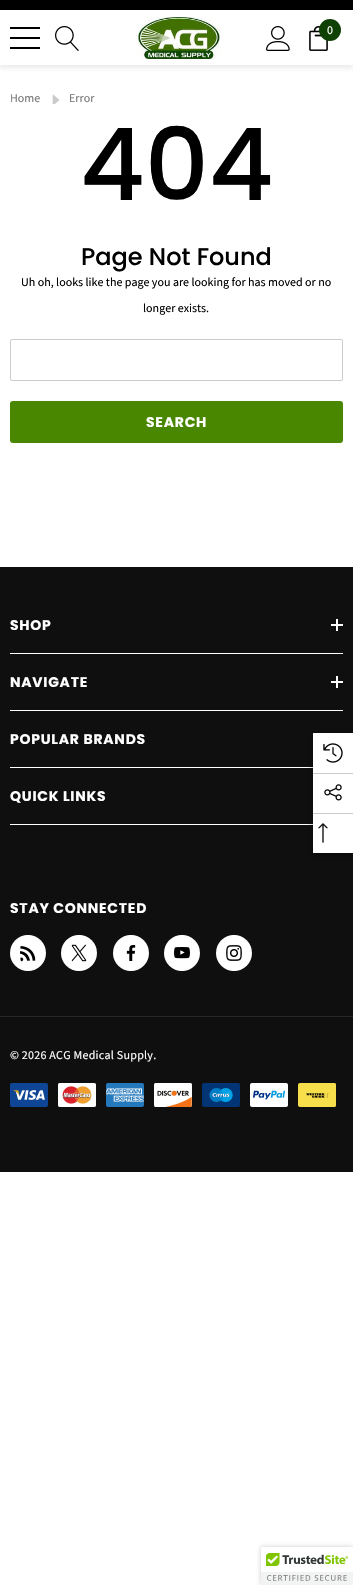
#include "include/core/SkBlurTypes.h"
#include "include/core/SkCanvas.h"
#include "include/core/SkData.h"
#include "include/core/SkFont.h"
#include "include/core/SkFontMgr.h"
#include "include/core/SkImage.h"
#include "include/core/SkMaskFilter.h"
#include "include/core/SkPaint.h"
#include "include/core/SkPathBuilder.h"
#include "include/core/SkTextBlob.h"
#include "include/effects/SkDashPathEffect.h"
#include "include/effects/SkGradientShader.h"
#include "include/utils/SkParsePath.h"

extern sk_sp<SkFontMgr> fontMgr;

static SkFont font(const char* family, int weight, float size, bool italic = false) {
    SkFontStyle style(weight, SkFontStyle::kNormal_Width,
        italic ? SkFontStyle::kItalic_Slant : SkFontStyle::kUpright_Slant);
    SkFont result(fontMgr->matchFamilyStyle(family, style), size);
    result.setSubpixel(true);
    return result;
}

static void drawLabel(SkCanvas* canvas, const char* s, float x, float y, const SkFont& font, SkColor color) {
    SkPaint ink(SkColor4f::FromColor(color));
    ink.setAntiAlias(true);
    canvas->drawString(s, x, y, font, ink);
}

static void drawTracked(SkCanvas* canvas, const char* s, float x, float y, const SkFont& font, const SkPaint& ink, float letter, float word) {
    std::vector<SkGlyphID> glyphs(font.countText(s, strlen(s), SkTextEncoding::kUTF8));
    std::vector<float> xs(glyphs.size());
    font.textToGlyphs(s, strlen(s), SkTextEncoding::kUTF8, glyphs);
    font.getXPos(glyphs, xs, x);
    float extra = 0;
    for (size_t i = 0; i < glyphs.size(); i++) {
        xs[i] += extra;
        extra += letter + word * (glyphs[i] == font.unicharToGlyph(' '));
    }
    canvas->drawTextBlob(SkTextBlob::MakeFromPosHGlyphs(glyphs, xs, y, font), 0, 0, ink);
}

static void fillRect(SkCanvas* canvas, float x, float y, float w, float h, SkColor color) {
    SkPaint ink(SkColor4f::FromColor(color));
    ink.setAntiAlias(true);
    canvas->drawRect(SkRect::MakeXYWH(x, y, w, h), ink);
}

static void fillRRect(SkCanvas* canvas, float x, float y, float w, float h, float radius, SkColor color) {
    SkPaint ink(SkColor4f::FromColor(color));
    ink.setAntiAlias(true);
    canvas->drawRoundRect(SkRect::MakeXYWH(x, y, w, h), radius, radius, ink);
}

static void drawPhoto(SkCanvas* canvas, const char* path, float x, float y, float w, float h) {
    auto image = SkImages::DeferredFromEncodedData(SkData::MakeFromFileName(path));
    canvas->drawImageRect(image, SkRect::MakeXYWH(x, y, w, h), SkSamplingOptions());
}

static SkPath parsePath(const char* data, bool evenOdd = false) {
    SkPath result = *SkParsePath::FromSVGString(data);
    if (evenOdd) result.setFillType(SkPathFillType::kEvenOdd);
    return result;
}

void draw(SkCanvas* canvas) {
    SkPaint paint;
    paint.setAntiAlias(true);
    canvas->clear(0xFFFFFFFF);
    canvas->save();
    canvas->clipRect(SkRect::MakeXYWH(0, 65, 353, 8));
    paint.setColor(0xFFE5E5E5);
    paint.setMaskFilter(SkMaskFilter::MakeBlur(kNormal_SkBlurStyle, 3));
    canvas->drawRect(SkRect::MakeXYWH(-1, 0, 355, 67), paint);
    paint.setMaskFilter(nullptr);
    canvas->restore();
    fillRect(canvas, 0, 0, 353, 10, 0xFF000000);
    fillRect(canvas, 10, 37, 30, 2, 0xFF000000);
    fillRect(canvas, 10, 27, 30, 2, 0xFF000000);
    fillRect(canvas, 10, 47, 30, 2, 0xFF000000);
    drawPhoto(canvas, "assets/img1.png", 55, 26, 24, 25);
    drawPhoto(canvas, "assets/img2.png", 138, 17, 82, 42);
    drawPhoto(canvas, "assets/img3.png", 266, 26, 24, 25);
    drawPhoto(canvas, "assets/img4.png", 309, 26, 19, 25);
    paint.setColor(0xFF0F4105);
    canvas->drawCircle(330, 30, 11, paint);
    SkFont font1 = font("Source Sans Pro", 400, 12);
    drawLabel(canvas, "0", 327, 34, font1, 0xFFFFFFFF);
    drawLabel(canvas, "Home", 10, 102, font1, 0xFF777777);
    {
        const SkColor colors[] = {0xFFFFFFFF, 0x1AFFFFFF};
        const float stops[] = {0, 1};
        const SkPoint ends[] = {{0, 100}, {12, 100}};
        paint.setShader(SkGradientShader::MakeLinear(ends, colors, stops, 2, SkTileMode::kClamp));
        paint.setAlpha(255);
    }
    canvas->drawRect(SkRect::MakeXYWH(11, 94, 1, 8), paint);
    drawPhoto(canvas, "assets/img5.png", 52, 94, 8, 10);
    drawLabel(canvas, "Error", 69, 102, font1, 0xFF777777);
    SkFont font2 = font("Poppins", 500, 100);
    drawLabel(canvas, "404", 80, 200, font2, 0xFF000000);
    SkFont font3 = font("Poppins", 500, 24);
    drawLabel(canvas, "Page Not Found", 81, 265, font3, 0xFF000000);
    drawLabel(canvas, "Uh oh, looks like the page you are looking for has moved or no", 21, 286, font1, 0xFF000000);
    drawLabel(canvas, "longer exists.", 143, 312, font1, 0xFF000000);
    paint.setStroke(true);
    paint.setStrokeWidth(1);
    paint.setShader(nullptr);
    paint.setColor(0xFFCBCBCB);
    canvas->drawRoundRect(SkRect::MakeXYWH(10.5f, 339.5f, 332, 41), 1.5f, 1.5f, paint);
    fillRRect(canvas, 10, 401, 333, 42, 3, 0xFF498701);
    SkFont font4 = font("Poppins", 700, 14);
    paint.setStroke(false);
    paint.setColor(0xFFFFFFFF);
    drawTracked(canvas, "SEARCH", 146, 427, font4, paint, 0.75f, 0);
    fillRect(canvas, 0, 567, 353, 605, 0xFF0F0F0F);
    fillRect(canvas, 10, 653, 333, 1, 0xFFFFFFFF);
    drawTracked(canvas, "SHOP", 10, 630, font4, paint, 0.75f, 0);
    fillRect(canvas, 336, 619, 2, 12, 0xFFFFFFFF);
    fillRect(canvas, 331, 624, 12, 2, 0xFFFFFFFF);
    fillRect(canvas, 10, 710, 333, 1, 0xFFFFFFFF);
    drawTracked(canvas, "NAVIGATE", 10, 687, font4, paint, 0.75f, 0);
    fillRect(canvas, 336, 676, 2, 12, 0xFFFFFFFF);
    fillRect(canvas, 331, 681, 12, 2, 0xFFFFFFFF);
    fillRect(canvas, 10, 767, 303, 1, 0xFFFFFFFF);
    drawTracked(canvas, "POPULAR BRANDS", 10, 744, font4, paint, 0.75f, 0);
    fillRect(canvas, 10, 824, 303, 1, 0xFFFFFFFF);
    drawTracked(canvas, "QUICK LINKS", 10, 801, font4, paint, 0.75f, 0);
    drawTracked(canvas, "STAY CONNECTED", 10, 913, font4, paint, 0.75f, 0);
    canvas->drawCircle(28, 953, 18, paint);
    canvas->drawOval(SkRect::MakeXYWH(20, 935, 16, 36), paint);
    drawPhoto(canvas, "assets/img6.png", 20, 946, 16, 16);
    canvas->drawCircle(79, 953, 18, paint);
    canvas->drawOval(SkRect::MakeXYWH(71, 935, 16, 36), paint);
    drawPhoto(canvas, "assets/img7.png", 71, 944, 16, 18);
    canvas->drawCircle(131, 953, 18, paint);
    canvas->drawOval(SkRect::MakeXYWH(123, 935, 16, 36), paint);
    drawPhoto(canvas, "assets/img8.png", 126, 945, 10, 16);
    canvas->drawCircle(182, 953, 18, paint);
    canvas->drawOval(SkRect::MakeXYWH(174, 935, 16, 36), paint);
    drawPhoto(canvas, "assets/img9.png", 174, 947, 16, 12);
    canvas->drawCircle(234, 953, 18, paint);
    canvas->drawOval(SkRect::MakeXYWH(226, 935, 16, 36), paint);
    drawPhoto(canvas, "assets/img10.png", 226, 945, 16, 16);
    fillRect(canvas, 0, 1016, 353, 1, 0xFF272727);
    drawTracked(canvas, "© 2026 ACG Medical Supply.", 10, 1059, font1, paint, 0.25f, 0);
    drawPhoto(canvas, "assets/img11.png", 10, 1083, 38, 24);
    drawPhoto(canvas, "assets/img12.png", 58, 1083, 38, 24);
    drawPhoto(canvas, "assets/img13.png", 106, 1083, 38, 24);
    fillRRect(canvas, 154, 1083, 38, 24, 2, 0xFFF9F9F9);
    drawPhoto(canvas, "assets/img14.png", 154, 1083, 38, 24);
    fillRRect(canvas, 202, 1083, 38, 24, 2, 0xFF013474);
    drawPhoto(canvas, "assets/img15.png", 250, 1083, 38, 24);
    fillRRect(canvas, 298, 1083, 38, 24, 2, 0xFFF7DE4B);
    drawPhoto(canvas, "assets/img16.png", 209, 1088, 24, 14);
    drawPhoto(canvas, "assets/img17.png", 306, 1083, 30, 24);
    paint.setColor(0x4D000000);
    paint.setMaskFilter(SkMaskFilter::MakeBlur(kNormal_SkBlurStyle, 3.5f));
    canvas->drawRect(SkRect::MakeXYWH(313, 736, 40, 120), paint);
    paint.setMaskFilter(nullptr);
    paint.setColor(0x1A000000);
    paint.setMaskFilter(SkMaskFilter::MakeBlur(kNormal_SkBlurStyle, 1));
    canvas->drawRect(SkRect::MakeXYWH(312, 732, 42, 122), paint);
    paint.setMaskFilter(nullptr);
    fillRect(canvas, 313, 733, 40, 120, 0xFFFFFFFF);
    drawPhoto(canvas, "assets/img18.png", 323, 743, 20, 20);
    fillRect(canvas, 313, 773, 40, 1, 0xFFCBCBCB);
    drawPhoto(canvas, "assets/img19.png", 324, 784, 18, 17);
    fillRect(canvas, 313, 813, 40, 1, 0xFFCBCBCB);
    drawPhoto(canvas, "assets/img20.png", 318, 823, 10, 20);
    paint.setColor(0x33000000);
    paint.setMaskFilter(SkMaskFilter::MakeBlur(kNormal_SkBlurStyle, 2.5f));
    canvas->drawRoundRect(SkRect::MakeXYWH(261, 1547, 92, 38), 2, 2, paint);
    paint.setMaskFilter(nullptr);
    paint.setColor(0xFFFFFFFF);
    canvas->drawPath(parsePath("M263 1547H353V1585H261V1549C261 1548 262 1547 263 1547Z"), paint);
    drawPhoto(canvas, "assets/img21.png", 261, 1547, 92, 38);
}
